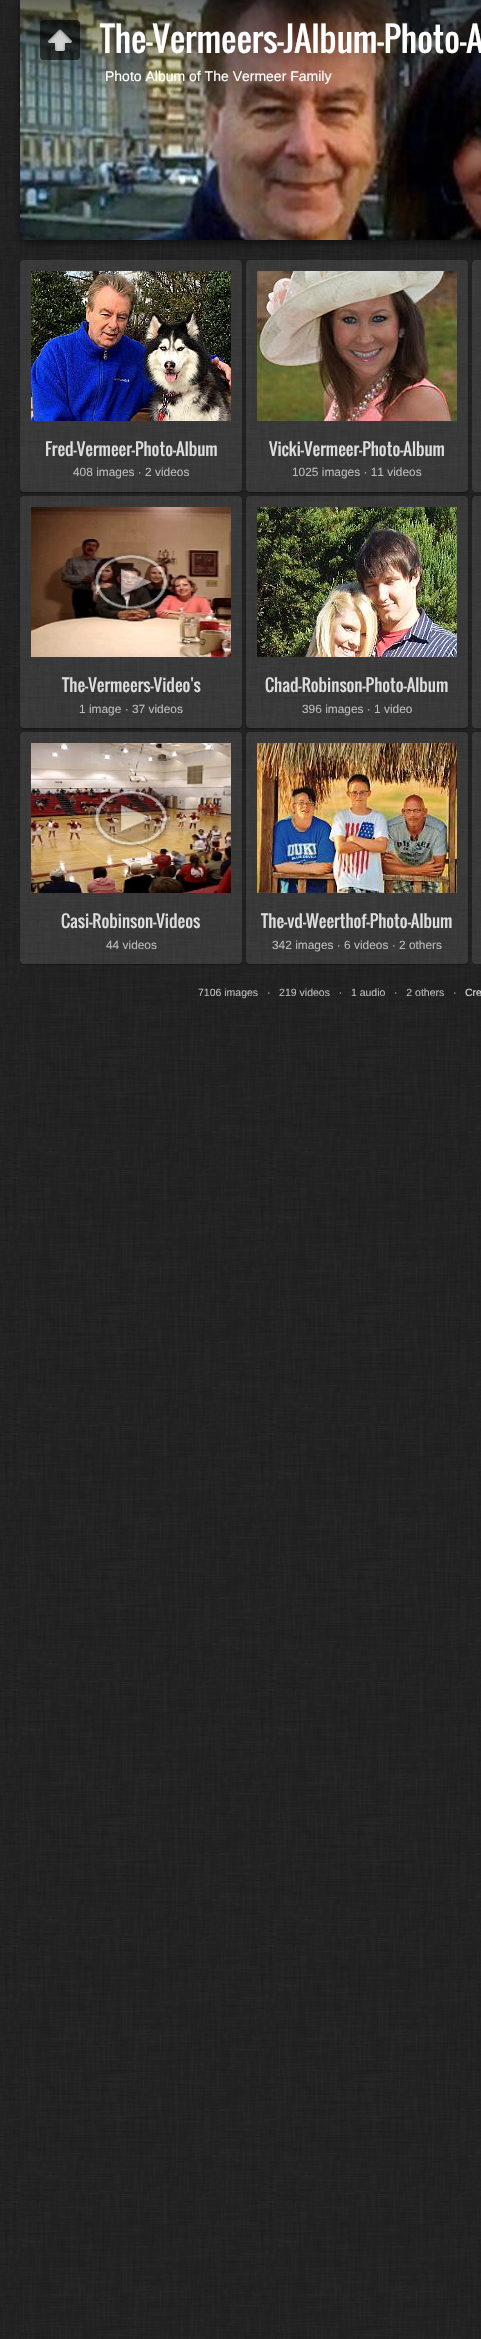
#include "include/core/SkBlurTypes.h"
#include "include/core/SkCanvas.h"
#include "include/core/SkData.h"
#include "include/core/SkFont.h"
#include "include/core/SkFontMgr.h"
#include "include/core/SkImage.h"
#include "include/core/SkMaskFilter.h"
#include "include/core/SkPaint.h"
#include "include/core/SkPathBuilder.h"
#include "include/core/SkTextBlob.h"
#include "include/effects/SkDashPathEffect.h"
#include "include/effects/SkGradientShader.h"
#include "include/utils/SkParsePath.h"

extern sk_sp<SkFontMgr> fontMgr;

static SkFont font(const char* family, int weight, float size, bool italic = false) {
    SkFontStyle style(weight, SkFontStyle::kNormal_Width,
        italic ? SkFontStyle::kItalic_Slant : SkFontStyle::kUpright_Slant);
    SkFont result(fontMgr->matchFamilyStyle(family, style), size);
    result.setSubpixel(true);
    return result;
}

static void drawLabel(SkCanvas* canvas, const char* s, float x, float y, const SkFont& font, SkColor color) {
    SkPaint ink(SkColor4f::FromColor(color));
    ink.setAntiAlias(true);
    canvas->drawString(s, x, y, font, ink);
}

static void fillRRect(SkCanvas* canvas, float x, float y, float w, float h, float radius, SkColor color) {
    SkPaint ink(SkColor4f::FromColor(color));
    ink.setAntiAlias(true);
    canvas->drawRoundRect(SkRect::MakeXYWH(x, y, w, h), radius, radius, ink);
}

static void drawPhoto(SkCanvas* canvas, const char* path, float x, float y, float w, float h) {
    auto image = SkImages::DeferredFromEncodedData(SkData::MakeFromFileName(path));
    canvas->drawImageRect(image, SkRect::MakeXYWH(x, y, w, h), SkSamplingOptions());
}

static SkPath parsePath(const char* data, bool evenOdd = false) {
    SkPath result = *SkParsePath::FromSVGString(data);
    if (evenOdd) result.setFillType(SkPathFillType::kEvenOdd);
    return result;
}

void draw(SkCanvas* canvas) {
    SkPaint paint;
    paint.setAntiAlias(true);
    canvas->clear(0xFF222222);
    drawPhoto(canvas, "assets/img1.png", 0, 0, 481, 2339);
    paint.setColor(0x99000000);
    paint.setMaskFilter(SkMaskFilter::MakeBlur(kNormal_SkBlurStyle, 4));
    canvas->drawRoundRect(SkRect::MakeXYWH(21, 3, 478, 240), 6, 6, paint);
    paint.setMaskFilter(nullptr);
    drawPhoto(canvas, "assets/img2.png", 20, 0, 461, 240);
    fillRRect(canvas, 40, 20, 40, 40, 4, 0x99000000);
    drawPhoto(canvas, "assets/img3.png", 48, 29, 24, 22);
    SkFont font1 = font("Oswald", 400, 33.6f);
    drawLabel(canvas, "The-Vermeers-JAlbum-Photo-A", 100, 53, font1, 0xFFFFFFFF);
    SkFont font2 = font("Liberation Sans", 400, 14);
    drawLabel(canvas, "Photo Album of The Vermeer Family", 105, 81, font2, 0xFFFFFFFF);
    canvas->save();
    canvas->clipPath(parsePath("M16 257H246V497H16ZM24 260H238C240 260 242 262 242 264V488C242 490 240 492 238 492H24C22 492 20 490 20 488V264C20 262 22 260 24 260Z", true), true);
    paint.setColor(0x66000000);
    paint.setMaskFilter(SkMaskFilter::MakeBlur(kNormal_SkBlurStyle, 1));
    canvas->drawRoundRect(SkRect::MakeXYWH(20, 261, 222, 232), 4, 4, paint);
    paint.setMaskFilter(nullptr);
    canvas->restore();
    fillRRect(canvas, 20, 260, 222, 232, 4, 0x1AFFFFFF);
    drawPhoto(canvas, "assets/img4.png", 31, 271, 200, 150);
    SkFont font3 = font("Oswald", 400, 16.75f);
    drawLabel(canvas, "Fred-Vermeer-Photo-Album", 45, 456, font3, 0xFFDDDDDD);
    SkFont font4 = font("Liberation Sans", 400, 11.9f);
    drawLabel(canvas, "408 images · 2 videos", 73, 476, font4, 0xFFBBBBBB);
    canvas->save();
    canvas->clipPath(parsePath("M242 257H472V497H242ZM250 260H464C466 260 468 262 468 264V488C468 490 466 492 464 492H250C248 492 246 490 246 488V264C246 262 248 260 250 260Z", true), true);
    paint.setMaskFilter(SkMaskFilter::MakeBlur(kNormal_SkBlurStyle, 1));
    canvas->drawRoundRect(SkRect::MakeXYWH(246, 261, 222, 232), 4, 4, paint);
    paint.setMaskFilter(nullptr);
    canvas->restore();
    fillRRect(canvas, 246, 260, 222, 232, 4, 0x1AFFFFFF);
    drawPhoto(canvas, "assets/img5.png", 257, 271, 200, 150);
    drawLabel(canvas, "Vicki-Vermeer-Photo-Album", 269, 456, font3, 0xFFDDDDDD);
    drawLabel(canvas, "1025 images · 11 videos", 292, 476, font4, 0xFFBBBBBB);
    paint.setColor(0x1AFFFFFF);
    canvas->drawPath(parsePath("M476 260H481V492H476C474 492 472 490 472 488V264C472 262 474 260 476 260Z"), paint);
    canvas->save();
    canvas->clipPath(parsePath("M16 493H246V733H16ZM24 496H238C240 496 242 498 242 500V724C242 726 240 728 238 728H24C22 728 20 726 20 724V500C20 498 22 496 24 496Z", true), true);
    paint.setColor(0x66000000);
    paint.setMaskFilter(SkMaskFilter::MakeBlur(kNormal_SkBlurStyle, 1));
    canvas->drawRoundRect(SkRect::MakeXYWH(20, 497, 222, 232), 4, 4, paint);
    paint.setMaskFilter(nullptr);
    canvas->restore();
    fillRRect(canvas, 20, 496, 222, 232, 4, 0x1AFFFFFF);
    drawPhoto(canvas, "assets/img6.png", 31, 507, 200, 150);
    drawLabel(canvas, "The-Vermeers-Video's", 62, 692, font3, 0xFFDDDDDD);
    drawLabel(canvas, "1 image · 37 videos", 79, 713, font4, 0xFFBBBBBB);
    canvas->save();
    canvas->clipPath(parsePath("M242 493H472V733H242ZM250 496H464C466 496 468 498 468 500V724C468 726 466 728 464 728H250C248 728 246 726 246 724V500C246 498 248 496 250 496Z", true), true);
    paint.setMaskFilter(SkMaskFilter::MakeBlur(kNormal_SkBlurStyle, 1));
    canvas->drawRoundRect(SkRect::MakeXYWH(246, 497, 222, 232), 4, 4, paint);
    paint.setMaskFilter(nullptr);
    canvas->restore();
    fillRRect(canvas, 246, 496, 222, 232, 4, 0x1AFFFFFF);
    drawPhoto(canvas, "assets/img7.png", 257, 507, 200, 150);
    drawLabel(canvas, "Chad-Robinson-Photo-Album", 265, 692, font3, 0xFFDDDDDD);
    drawLabel(canvas, "396 images · 1 video", 302, 713, font4, 0xFFBBBBBB);
    paint.setColor(0x1AFFFFFF);
    canvas->drawPath(parsePath("M476 496H481V728H476C474 728 472 726 472 724V500C472 498 474 496 476 496Z"), paint);
    canvas->save();
    canvas->clipPath(parsePath("M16 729H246V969H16ZM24 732H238C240 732 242 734 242 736V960C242 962 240 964 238 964H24C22 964 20 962 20 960V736C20 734 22 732 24 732Z", true), true);
    paint.setColor(0x66000000);
    paint.setMaskFilter(SkMaskFilter::MakeBlur(kNormal_SkBlurStyle, 1));
    canvas->drawRoundRect(SkRect::MakeXYWH(20, 733, 222, 232), 4, 4, paint);
    paint.setMaskFilter(nullptr);
    canvas->restore();
    fillRRect(canvas, 20, 732, 222, 232, 4, 0x1AFFFFFF);
    drawPhoto(canvas, "assets/img8.png", 31, 743, 200, 150);
    drawLabel(canvas, "Casi-Robinson-Videos", 61, 928, font3, 0xFFDDDDDD);
    drawLabel(canvas, "44 videos", 106, 949, font4, 0xFFBBBBBB);
    canvas->save();
    canvas->clipPath(parsePath("M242 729H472V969H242ZM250 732H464C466 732 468 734 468 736V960C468 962 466 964 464 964H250C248 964 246 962 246 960V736C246 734 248 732 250 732Z", true), true);
    paint.setMaskFilter(SkMaskFilter::MakeBlur(kNormal_SkBlurStyle, 1));
    canvas->drawRoundRect(SkRect::MakeXYWH(246, 733, 222, 232), 4, 4, paint);
    paint.setMaskFilter(nullptr);
    canvas->restore();
    fillRRect(canvas, 246, 732, 222, 232, 4, 0x1AFFFFFF);
    drawPhoto(canvas, "assets/img9.png", 257, 743, 200, 150);
    drawLabel(canvas, "The-vd-Weerthof-Photo-Album", 261, 928, font3, 0xFFDDDDDD);
    drawLabel(canvas, "342 images · 6 videos · 2 others", 272, 949, font4, 0xFFBBBBBB);
    paint.setColor(0x1AFFFFFF);
    canvas->drawPath(parsePath("M476 732H481V964H476C474 964 472 962 472 960V736C472 734 474 732 476 732Z"), paint);
    SkFont font5 = font("Liberation Sans", 400, 10.5f);
    drawLabel(canvas, "7106 images   ·   219 videos   ·   1 audio   ·   2 others   ·", 198, 996, font5, 0xFFBBBBBB);
    drawLabel(canvas, "Cre", 465, 996, font5, 0xFFDDDDDD);
}
